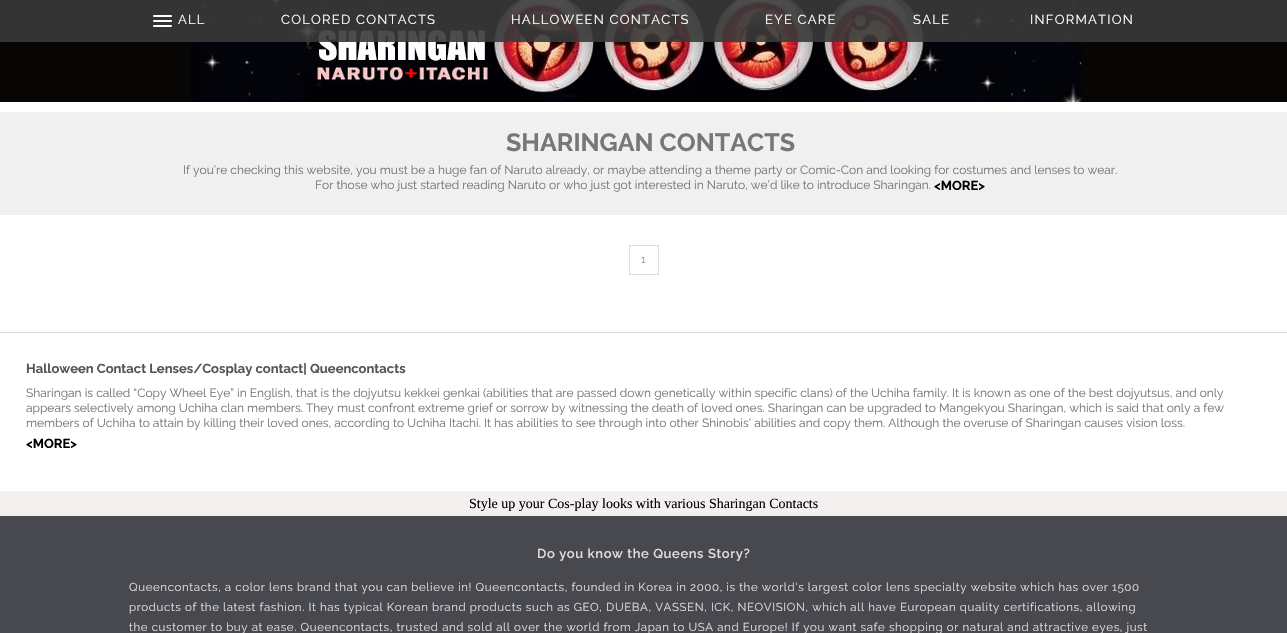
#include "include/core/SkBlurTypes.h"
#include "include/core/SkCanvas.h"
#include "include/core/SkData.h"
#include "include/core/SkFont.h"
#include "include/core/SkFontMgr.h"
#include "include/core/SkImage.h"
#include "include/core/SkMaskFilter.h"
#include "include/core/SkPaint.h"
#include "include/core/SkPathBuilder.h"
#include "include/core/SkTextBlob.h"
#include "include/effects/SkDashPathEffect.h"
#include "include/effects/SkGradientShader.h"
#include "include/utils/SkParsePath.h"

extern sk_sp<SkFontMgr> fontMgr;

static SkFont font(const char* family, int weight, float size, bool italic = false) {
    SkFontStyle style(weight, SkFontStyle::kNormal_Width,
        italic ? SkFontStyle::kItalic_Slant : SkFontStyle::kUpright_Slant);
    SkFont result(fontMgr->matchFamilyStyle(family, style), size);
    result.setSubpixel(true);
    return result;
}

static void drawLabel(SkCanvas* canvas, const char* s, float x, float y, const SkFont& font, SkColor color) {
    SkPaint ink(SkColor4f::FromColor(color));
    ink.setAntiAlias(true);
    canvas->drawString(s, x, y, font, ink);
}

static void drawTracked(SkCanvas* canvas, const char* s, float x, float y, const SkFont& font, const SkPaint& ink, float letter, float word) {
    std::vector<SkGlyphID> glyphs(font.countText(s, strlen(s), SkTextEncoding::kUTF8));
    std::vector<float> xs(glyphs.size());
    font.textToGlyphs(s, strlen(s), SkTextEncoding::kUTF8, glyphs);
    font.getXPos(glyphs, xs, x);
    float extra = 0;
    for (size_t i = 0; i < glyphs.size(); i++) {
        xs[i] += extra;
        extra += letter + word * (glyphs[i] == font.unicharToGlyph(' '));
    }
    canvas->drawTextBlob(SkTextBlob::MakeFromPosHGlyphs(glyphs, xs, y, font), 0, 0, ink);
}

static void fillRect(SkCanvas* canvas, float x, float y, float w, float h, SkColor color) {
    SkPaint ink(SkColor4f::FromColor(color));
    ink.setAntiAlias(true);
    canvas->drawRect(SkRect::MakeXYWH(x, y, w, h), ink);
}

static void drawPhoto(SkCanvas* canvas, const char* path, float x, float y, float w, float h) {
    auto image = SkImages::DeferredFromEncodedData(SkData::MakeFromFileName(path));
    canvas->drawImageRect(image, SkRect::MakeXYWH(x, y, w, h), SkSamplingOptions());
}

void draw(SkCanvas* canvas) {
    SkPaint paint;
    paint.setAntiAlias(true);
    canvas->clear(0xFFFFFFFF);
    fillRect(canvas, 0, 0, 1287, 102, 0xFF070604);
    drawPhoto(canvas, "assets/img2.png", 190, 0, 893, 102);
    fillRect(canvas, 0, 0, 1287, 42, 0xE6393939);
    drawPhoto(canvas, "assets/img1.png", 153, 15, 19, 12);
    SkFont font1 = font("Raleway", 400, 13);
    paint.setColor(0xFFFFFFFF);
    drawTracked(canvas, "ALL", 178, 24, font1, paint, 1.25f, 0);
    drawTracked(canvas, "COLORED CONTACTS", 281, 24, font1, paint, 1.25f, 0);
    drawTracked(canvas, "HALLOWEEN CONTACTS", 511, 24, font1, paint, 1.25f, 0);
    drawTracked(canvas, "EYE CARE", 765, 24, font1, paint, 1.25f, 0);
    drawTracked(canvas, "SALE", 913, 24, font1, paint, 1.25f, 0);
    drawTracked(canvas, "INFORMATION", 1030, 24, font1, paint, 1.25f, 0);
    fillRect(canvas, 0, 112, 1287, 103, 0xFFF0F0F0);
    SkFont font2 = font("Raleway", 700, 25);
    drawLabel(canvas, "SHARINGAN CONTACTS", 506, 151, font2, 0xFF777777);
    SkFont font3 = font("Raleway", 400, 12);
    drawLabel(canvas, "If you’re checking this website, you must be a huge fan of Naruto already, or maybe attending a theme party or Comic-Con and looking for costumes and lenses to wear.", 183, 174, font3, 0xFF777777);
    drawLabel(canvas, "For those who just started reading Naruto or who just got interested in Naruto, we’d like to introduce Sharingan.", 315, 189, font3, 0xFF777777);
    SkFont font4 = font("Raleway", 700, 13);
    drawLabel(canvas, "<MORE>", 934, 190, font4, 0xFF000000);
    paint.setStroke(true);
    paint.setStrokeWidth(1);
    paint.setColor(0xFFDDDDDD);
    canvas->drawRect(SkRect::MakeXYWH(629.5f, 245.5f, 29, 29), paint);
    SkFont font5 = font("Raleway", 400, 11);
    drawLabel(canvas, "1", 641, 263, font5, 0xFF999999);
    fillRect(canvas, 0, 332, 1287, 1, 0xFFD6D6D6);
    drawLabel(canvas, "Halloween Contact Lenses/Cosplay contact| Queencontacts", 26, 373, font4, 0xFF555555);
    drawLabel(canvas, "Sharingan is called “Copy Wheel Eye” in English, that is the dojyutsu kekkei genkai (abilities that are passed down genetically within specific clans) of the Uchiha family. It is known as one of the best dojyutsus, and only", 26, 397, font3, 0xFF777777);
    drawLabel(canvas, "appears selectively among Uchiha clan members. They must confront extreme grief or sorrow by witnessing the death of loved ones. Sharingan can be upgraded to Mangekyou Sharingan, which is said that only a few", 26, 412, font3, 0xFF777777);
    drawLabel(canvas, "members of Uchiha to attain by killing their loved ones, according to Uchiha Itachi. It has abilities to see through into other Shinobis' abilities and copy them. Although the overuse of Sharingan causes vision loss.", 26, 427, font3, 0xFF777777);
    drawLabel(canvas, "<MORE>", 26, 448, font4, 0xFF000000);
    fillRect(canvas, 0, 491, 1287, 25, 0xFFF4F0EF);
    SkFont font6 = font("Liberation Serif", 400, 14);
    drawLabel(canvas, "Style up your Cos-play looks with various Sharingan Contacts", 469, 508, font6, 0xFF000000);
    fillRect(canvas, 0, 516, 1287, 117, 0xFF48494F);
    SkFont font7 = font("Raleway", 600, 13);
    paint.setStroke(false);
    paint.setColor(0xFFDDDDE2);
    drawTracked(canvas, "Do you know the Queens Story?", 537, 558, font7, paint, 0.6f, 0);
    SkFont font8 = font("Raleway", 400, 11.5f);
    drawTracked(canvas, "Queencontacts, a color lens brand that you can believe in! Queencontacts, founded in Korea in 2000, is the world's largest color lens specialty website which has over 1500", 129, 591, font8, paint, 0.6f, 0);
    drawTracked(canvas, "products of the latest fashion. It has typical Korean brand products such as GEO, DUEBA, VASSEN, ICK, NEOVISION, which all have European quality certifications, allowing", 129, 611, font8, paint, 0.6f, 0);
    drawTracked(canvas, "the customer to buy at ease. Queencontacts, trusted and sold all over the world from Japan to USA and Europe! If you want safe shopping or natural and attractive eyes, just", 129, 631, font8, paint, 0.6f, 0);
}
